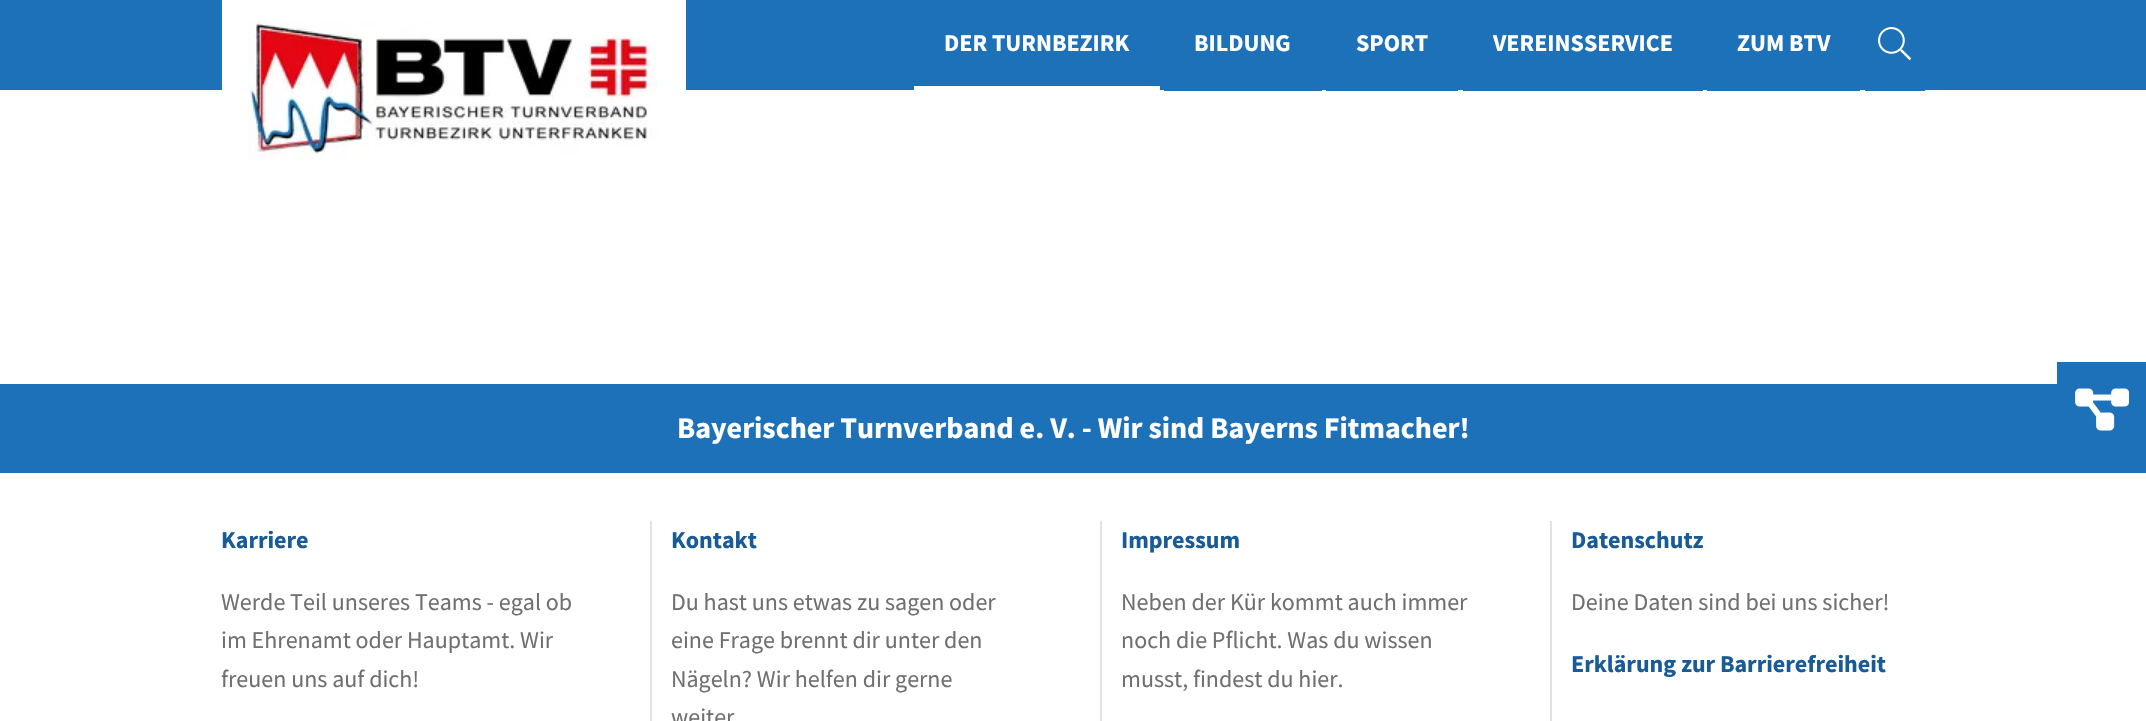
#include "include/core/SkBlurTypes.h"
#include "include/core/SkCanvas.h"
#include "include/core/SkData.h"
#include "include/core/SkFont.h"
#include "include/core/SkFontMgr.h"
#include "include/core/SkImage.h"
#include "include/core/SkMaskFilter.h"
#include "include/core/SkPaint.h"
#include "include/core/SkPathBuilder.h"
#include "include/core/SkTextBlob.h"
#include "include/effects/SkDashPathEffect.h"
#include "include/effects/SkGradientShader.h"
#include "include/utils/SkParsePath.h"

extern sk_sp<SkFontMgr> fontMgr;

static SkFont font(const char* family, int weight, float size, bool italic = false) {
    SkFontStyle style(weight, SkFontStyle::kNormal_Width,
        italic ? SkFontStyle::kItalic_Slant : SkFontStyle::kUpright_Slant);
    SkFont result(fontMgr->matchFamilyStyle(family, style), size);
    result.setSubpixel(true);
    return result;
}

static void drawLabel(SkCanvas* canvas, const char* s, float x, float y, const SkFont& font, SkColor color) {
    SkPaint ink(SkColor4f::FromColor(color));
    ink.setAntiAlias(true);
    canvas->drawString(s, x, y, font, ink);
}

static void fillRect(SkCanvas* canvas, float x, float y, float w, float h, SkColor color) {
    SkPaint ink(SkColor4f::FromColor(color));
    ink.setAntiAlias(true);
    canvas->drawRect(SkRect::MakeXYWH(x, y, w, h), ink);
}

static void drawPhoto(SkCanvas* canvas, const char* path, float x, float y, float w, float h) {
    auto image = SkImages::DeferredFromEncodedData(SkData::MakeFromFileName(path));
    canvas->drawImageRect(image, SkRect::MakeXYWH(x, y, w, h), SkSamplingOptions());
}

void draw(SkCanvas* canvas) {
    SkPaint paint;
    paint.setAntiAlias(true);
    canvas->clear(0xFFFFFFFF);
    fillRect(canvas, 0, 0, 2146, 90, 0xFF1D71B9);
    fillRect(canvas, 222, 0, 464, 90, 0xFFFFFFFF);
    drawPhoto(canvas, "assets/img1.png", 248, 21, 410, 139);
    fillRect(canvas, 914, 86, 246, 4, 0xFFFFFFFF);
    SkFont font1 = font("Source Sans Pro", 700, 24);
    drawLabel(canvas, "DER TURNBEZIRK", 944, 51, font1, 0xFFFFFFFF);
    fillRect(canvas, 1164, 90, 158, 1, 0xFF1D71B9);
    drawLabel(canvas, "BILDUNG", 1194, 51, font1, 0xFFFFFFFF);
    fillRect(canvas, 1326, 90, 132, 1, 0xFF1D71B9);
    drawLabel(canvas, "SPORT", 1356, 51, font1, 0xFFFFFFFF);
    fillRect(canvas, 1463, 90, 240, 1, 0xFF1D71B9);
    drawLabel(canvas, "VEREINSSERVICE", 1493, 51, font1, 0xFFFFFFFF);
    fillRect(canvas, 1707, 90, 153, 1, 0xFF1D71B9);
    drawLabel(canvas, "ZUM BTV", 1737, 51, font1, 0xFFFFFFFF);
    fillRect(canvas, 1865, 90, 60, 1, 0xFF1D71B9);
    drawPhoto(canvas, "assets/img2.png", 1878, 27, 33, 33);
    fillRect(canvas, 2057, 362, 89, 22, 0xFF1D71B9);
    fillRect(canvas, 0, 384, 2146, 89, 0xFF1D71B9);
    drawPhoto(canvas, "assets/img3.png", 2075, 388, 54, 43);
    SkFont font2 = font("Source Sans Pro", 700, 30);
    drawLabel(canvas, "Bayerischer Turnverband e. V. - Wir sind Bayerns Fitmacher!", 677, 438, font2, 0xFFFFFFFF);
    drawLabel(canvas, "Karriere", 221, 548, font1, 0xFF185B96);
    SkFont font3 = font("Source Sans Pro", 400, 24);
    drawLabel(canvas, "Werde Teil unseres Teams - egal ob", 221, 610, font3, 0xFF707070);
    drawLabel(canvas, "im Ehrenamt oder Hauptamt. Wir", 221, 648, font3, 0xFF707070);
    drawLabel(canvas, "freuen uns auf dich!", 221, 687, font3, 0xFF707070);
    fillRect(canvas, 650, 521, 2, 200, 0xFFE1E1E1);
    drawLabel(canvas, "Kontakt", 671, 548, font1, 0xFF185B96);
    drawLabel(canvas, "Du hast uns etwas zu sagen oder", 671, 610, font3, 0xFF707070);
    drawLabel(canvas, "eine Frage brennt dir unter den", 671, 648, font3, 0xFF707070);
    drawLabel(canvas, "Nägeln? Wir helfen dir gerne", 671, 687, font3, 0xFF707070);
    drawLabel(canvas, "weiter", 671, 725, font3, 0xFF707070);
    fillRect(canvas, 1100, 521, 2, 200, 0xFFE1E1E1);
    drawLabel(canvas, "Impressum", 1121, 548, font1, 0xFF185B96);
    drawLabel(canvas, "Neben der Kür kommt auch immer", 1121, 610, font3, 0xFF707070);
    drawLabel(canvas, "noch die Pflicht. Was du wissen", 1121, 648, font3, 0xFF707070);
    drawLabel(canvas, "musst, findest du hier.", 1121, 687, font3, 0xFF707070);
    fillRect(canvas, 1550, 521, 2, 200, 0xFFE1E1E1);
    drawLabel(canvas, "Datenschutz", 1571, 548, font1, 0xFF185B96);
    drawLabel(canvas, "Deine Daten sind bei uns sicher!", 1571, 610, font3, 0xFF707070);
    drawLabel(canvas, "Erklärung zur Barrierefreiheit", 1571, 672, font1, 0xFF185B96);
}
